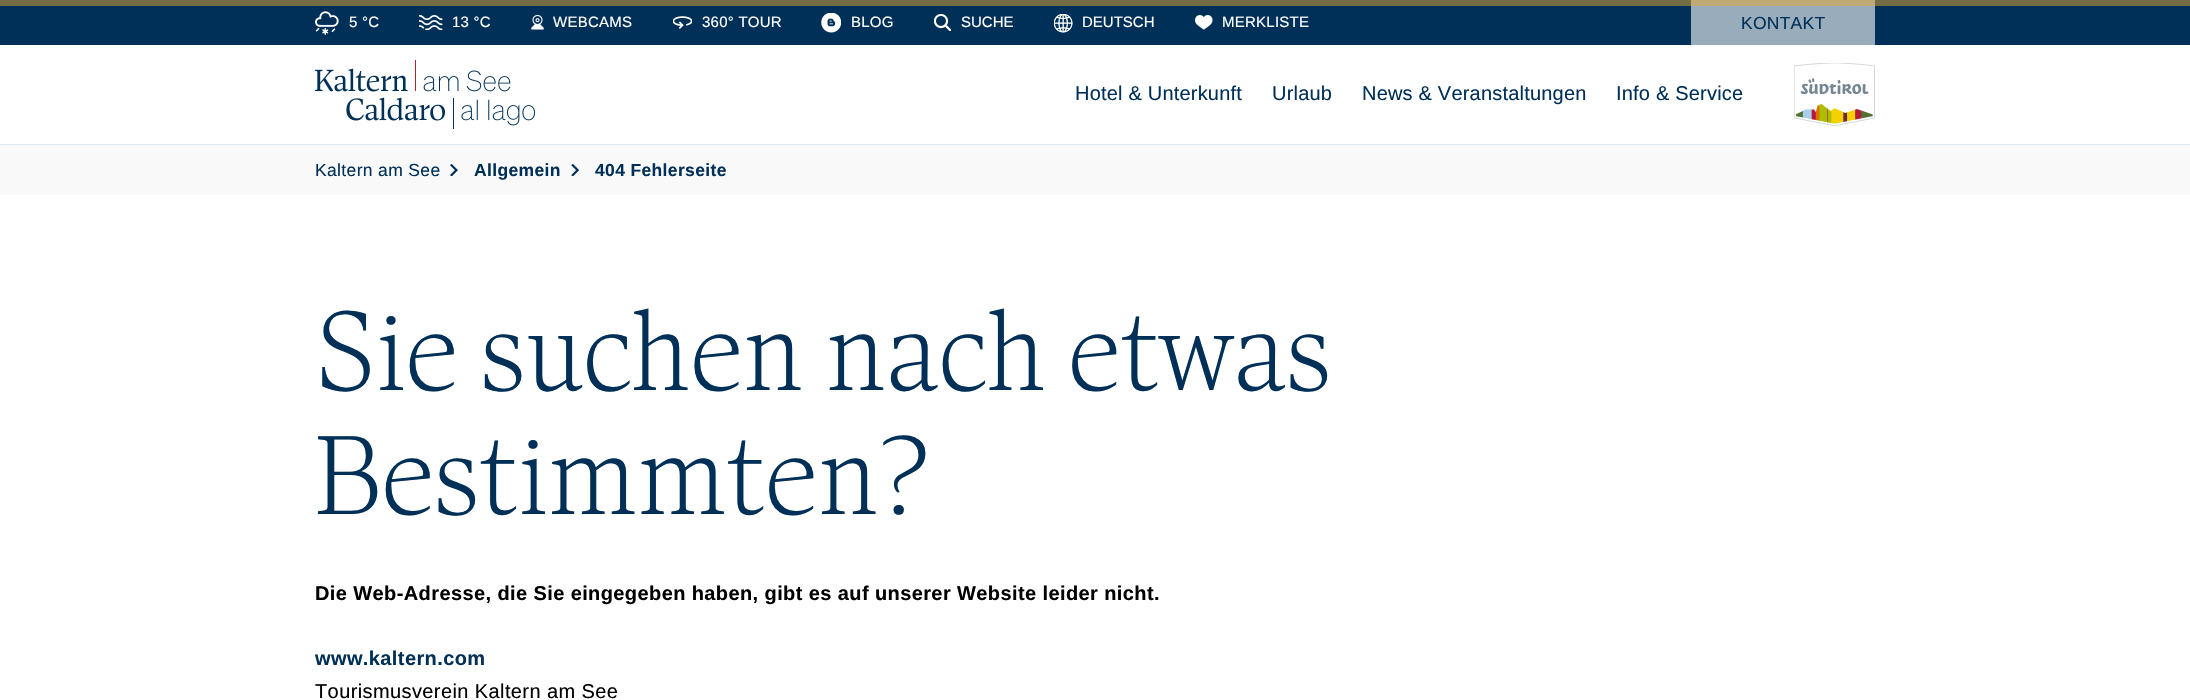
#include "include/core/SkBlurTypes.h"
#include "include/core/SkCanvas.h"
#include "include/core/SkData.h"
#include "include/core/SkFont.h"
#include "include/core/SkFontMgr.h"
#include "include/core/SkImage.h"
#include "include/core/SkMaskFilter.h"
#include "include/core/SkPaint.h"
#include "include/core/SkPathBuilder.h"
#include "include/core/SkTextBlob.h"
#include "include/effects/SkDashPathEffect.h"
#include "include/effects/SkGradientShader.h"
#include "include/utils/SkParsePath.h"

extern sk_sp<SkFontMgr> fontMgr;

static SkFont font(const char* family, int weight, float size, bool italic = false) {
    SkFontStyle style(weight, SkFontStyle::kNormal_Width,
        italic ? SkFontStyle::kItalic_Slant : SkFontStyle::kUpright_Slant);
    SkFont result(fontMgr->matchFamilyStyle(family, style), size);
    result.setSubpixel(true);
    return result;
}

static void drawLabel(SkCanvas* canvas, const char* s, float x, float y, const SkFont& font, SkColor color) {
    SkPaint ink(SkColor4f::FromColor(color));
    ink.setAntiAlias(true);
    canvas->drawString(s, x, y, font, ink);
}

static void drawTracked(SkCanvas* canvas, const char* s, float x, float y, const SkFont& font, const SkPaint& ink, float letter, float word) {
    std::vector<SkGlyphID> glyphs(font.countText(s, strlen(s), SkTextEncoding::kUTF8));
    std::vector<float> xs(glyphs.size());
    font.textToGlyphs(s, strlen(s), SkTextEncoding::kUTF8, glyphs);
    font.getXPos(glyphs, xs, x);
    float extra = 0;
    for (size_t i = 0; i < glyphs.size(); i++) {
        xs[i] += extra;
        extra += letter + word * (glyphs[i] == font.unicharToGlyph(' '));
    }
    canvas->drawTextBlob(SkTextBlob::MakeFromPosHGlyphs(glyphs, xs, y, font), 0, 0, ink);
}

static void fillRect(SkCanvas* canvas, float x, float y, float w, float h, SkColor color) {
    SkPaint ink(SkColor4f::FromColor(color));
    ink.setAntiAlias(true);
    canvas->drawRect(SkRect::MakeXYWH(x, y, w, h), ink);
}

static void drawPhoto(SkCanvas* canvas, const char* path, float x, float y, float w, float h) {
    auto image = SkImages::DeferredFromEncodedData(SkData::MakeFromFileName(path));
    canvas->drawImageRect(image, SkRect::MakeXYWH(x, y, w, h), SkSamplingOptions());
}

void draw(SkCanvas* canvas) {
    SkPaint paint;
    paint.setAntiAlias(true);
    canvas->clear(0xFFFFFFFF);
    fillRect(canvas, 0, 6, 2190, 39, 0xFF003057);
    fillRect(canvas, 0, 0, 2190, 6, 0xFF736C44);
    drawPhoto(canvas, "assets/img1.png", 315, 11, 24, 24);
    SkFont font1 = font("Liberation Sans", 400, 15);
    paint.setColor(0xFFFFFFFF);
    drawTracked(canvas, "5 °C", 349, 27, font1, paint, 0.25f, 0);
    drawPhoto(canvas, "assets/img2.png", 419, 15, 24, 15);
    drawTracked(canvas, "13 °C", 452, 27, font1, paint, 0.25f, 0);
    drawPhoto(canvas, "assets/img3.png", 531, 15, 13, 15);
    drawTracked(canvas, "WEBCAMS", 553, 27, font1, paint, 0.25f, 0);
    drawPhoto(canvas, "assets/img4.png", 673, 16, 19, 13);
    drawTracked(canvas, "360° TOUR", 702, 27, font1, paint, 0.25f, 0);
    drawPhoto(canvas, "assets/img5.png", 821, 13, 20, 20);
    drawTracked(canvas, "BLOG", 851, 27, font1, paint, 0.25f, 0);
    drawPhoto(canvas, "assets/img6.png", 934, 14, 17, 17);
    drawLabel(canvas, "SUCHE", 961, 27, font1, 0xFFFFFFFF);
    drawPhoto(canvas, "assets/img7.png", 1054, 14, 19, 19);
    drawLabel(canvas, "DEUTSCH", 1082, 27, font1, 0xFFFFFFFF);
    drawPhoto(canvas, "assets/img8.png", 1195, 15, 18, 15);
    drawTracked(canvas, "MERKLISTE", 1222, 27, font1, paint, 0.25f, 0);
    fillRect(canvas, 1691, 6, 184, 39, 0xFF99ACBC);
    fillRect(canvas, 1691, 0, 184, 6, 0xFFC0AA76);
    SkFont font2 = font("Liberation Sans", 400, 17.5f);
    paint.setColor(0xFF003057);
    drawTracked(canvas, "KONTAKT", 1741, 29, font2, paint, 0.25f, 0);
    fillRect(canvas, 0, 144, 2190, 1, 0xFFDCE8F0);
    drawPhoto(canvas, "assets/img9.png", 315, 60, 220, 69);
    SkFont font3 = font("Liberation Sans", 400, 20);
    drawTracked(canvas, "Hotel & Unterkunft", 1075, 100, font3, paint, 0.2f, 0);
    drawTracked(canvas, "Urlaub", 1272, 100, font3, paint, 0.2f, 0);
    drawTracked(canvas, "News & Veranstaltungen", 1362, 100, font3, paint, 0.2f, 0);
    drawTracked(canvas, "Info & Service", 1616, 100, font3, paint, 0.2f, 0);
    drawPhoto(canvas, "assets/img10.png", 1794, 63, 81, 63);
    fillRect(canvas, 0, 145, 2190, 50, 0xFFF9F9F9);
    drawTracked(canvas, "Kaltern am See", 315, 176, font2, paint, 0.35f, 0);
    drawPhoto(canvas, "assets/img11.png", 450, 164, 8, 12);
    SkFont font4 = font("Liberation Sans", 700, 17.5f);
    drawTracked(canvas, "Allgemein", 474, 176, font4, paint, 0.35f, 0);
    drawPhoto(canvas, "assets/img12.png", 571, 164, 8, 12);
    drawTracked(canvas, "404 Fehlerseite", 595, 176, font4, paint, 0.35f, 0);
    SkFont font5 = font("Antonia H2", 300, 112.5f);
    drawTracked(canvas, "Sie suchen nach etwas", 315, 390, font5, paint, 0.35f, 0);
    drawTracked(canvas, "Bestimmten?", 315, 514, font5, paint, 0.35f, 0);
    SkFont font6 = font("Liberation Sans", 700, 20);
    paint.setColor(0xFF000000);
    drawTracked(canvas, "Die Web-Adresse, die Sie eingegeben haben, gibt es auf unserer Website leider nicht.", 315, 600, font6, paint, 0.4f, 0);
    paint.setColor(0xFF003057);
    drawTracked(canvas, "www.kaltern.com", 315, 665, font6, paint, 0.4f, 0);
    paint.setColor(0xFF000000);
    drawTracked(canvas, "Tourismusverein Kaltern am See", 315, 698, font3, paint, 0.4f, 0);
}
